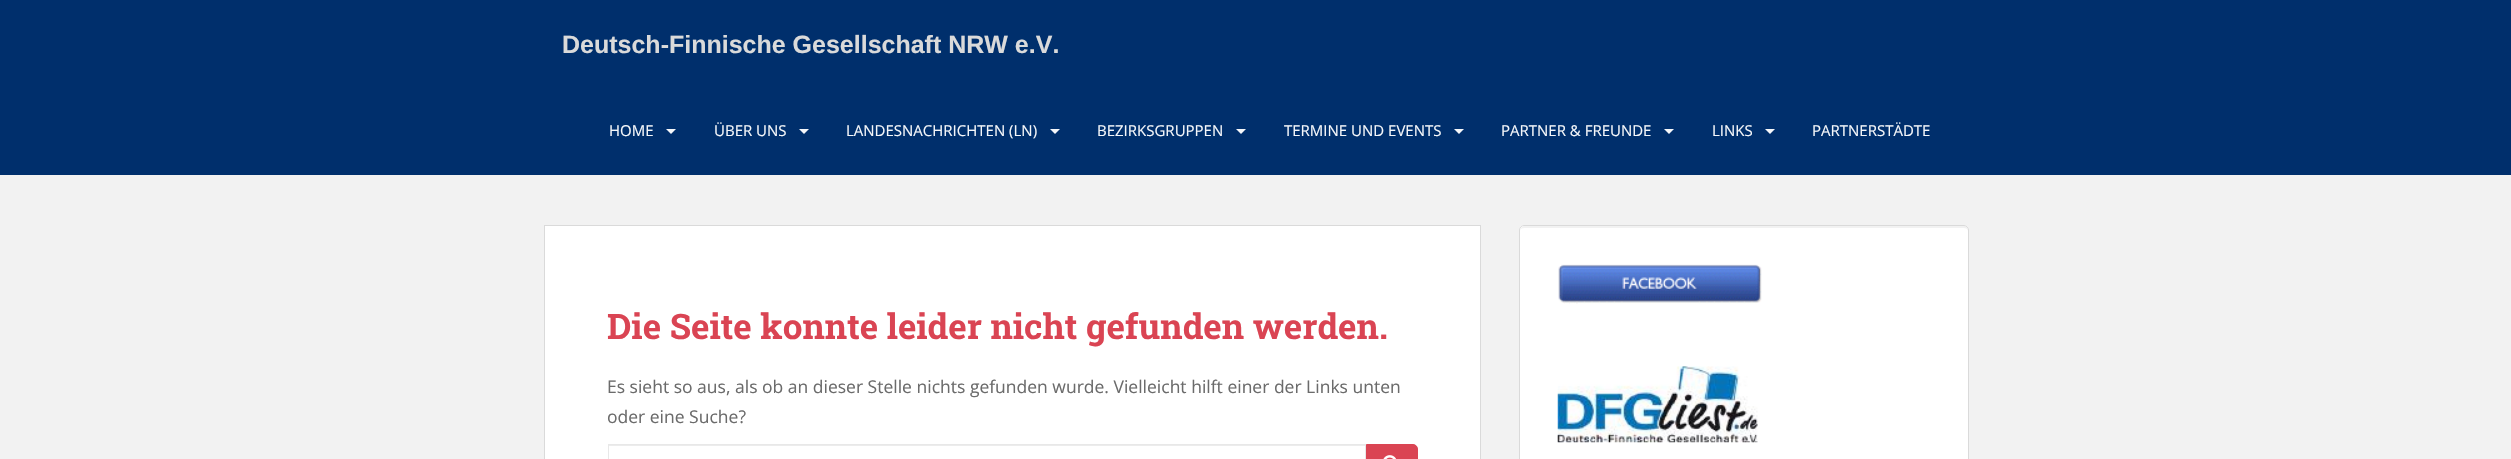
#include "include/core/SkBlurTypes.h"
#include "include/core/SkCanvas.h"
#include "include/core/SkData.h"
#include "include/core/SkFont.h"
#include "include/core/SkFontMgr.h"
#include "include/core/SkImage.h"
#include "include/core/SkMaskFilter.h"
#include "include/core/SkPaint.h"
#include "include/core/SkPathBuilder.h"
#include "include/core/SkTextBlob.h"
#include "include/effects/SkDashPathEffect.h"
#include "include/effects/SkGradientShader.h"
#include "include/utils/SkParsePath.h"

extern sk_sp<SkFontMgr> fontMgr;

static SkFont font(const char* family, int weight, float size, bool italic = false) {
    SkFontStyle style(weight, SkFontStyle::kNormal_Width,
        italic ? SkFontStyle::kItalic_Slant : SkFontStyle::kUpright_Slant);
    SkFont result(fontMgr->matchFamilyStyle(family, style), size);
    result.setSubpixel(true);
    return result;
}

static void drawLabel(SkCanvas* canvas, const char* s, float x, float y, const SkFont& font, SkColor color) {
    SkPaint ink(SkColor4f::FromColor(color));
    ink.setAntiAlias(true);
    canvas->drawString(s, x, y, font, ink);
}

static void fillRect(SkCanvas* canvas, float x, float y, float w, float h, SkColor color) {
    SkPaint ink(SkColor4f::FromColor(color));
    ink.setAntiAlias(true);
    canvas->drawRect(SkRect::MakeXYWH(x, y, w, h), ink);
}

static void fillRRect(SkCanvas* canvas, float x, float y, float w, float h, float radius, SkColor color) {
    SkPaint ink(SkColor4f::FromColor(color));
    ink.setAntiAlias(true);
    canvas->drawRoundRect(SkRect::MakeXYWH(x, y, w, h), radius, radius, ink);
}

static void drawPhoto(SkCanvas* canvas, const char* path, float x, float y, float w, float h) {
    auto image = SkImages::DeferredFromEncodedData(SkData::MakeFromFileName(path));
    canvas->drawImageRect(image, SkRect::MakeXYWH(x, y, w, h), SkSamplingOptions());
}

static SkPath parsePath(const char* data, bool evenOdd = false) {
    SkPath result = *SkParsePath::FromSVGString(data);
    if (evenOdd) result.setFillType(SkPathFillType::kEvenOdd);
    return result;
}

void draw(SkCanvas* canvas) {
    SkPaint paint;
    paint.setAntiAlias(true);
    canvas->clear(0xFFF2F2F2);
    fillRect(canvas, 0, 0, 2511, 175, 0xFF002F6C);
    SkFont font1 = font("Liberation Sans", 700, 25);
    drawLabel(canvas, "Deutsch-Finnische Gesellschaft NRW e.V.", 562, 53, font1, 0xFFDADADA);
    SkFont font2 = font("Open Sans", 400, 15);
    drawLabel(canvas, "HOME", 609, 136, font2, 0xFFF5F7FA);
    paint.setColor(0xFFF5F7FA);
    canvas->drawPath(parsePath("M666 129H676L671 134Z"), paint);
    drawLabel(canvas, "ÜBER UNS", 714, 136, font2, 0xFFF5F7FA);
    canvas->drawPath(parsePath("M799 129H809L804 134Z"), paint);
    drawLabel(canvas, "LANDESNACHRICHTEN (LN)", 846, 136, font2, 0xFFF5F7FA);
    canvas->drawPath(parsePath("M1050 129H1060L1055 134Z"), paint);
    drawLabel(canvas, "BEZIRKSGRUPPEN", 1097, 136, font2, 0xFFF5F7FA);
    canvas->drawPath(parsePath("M1236 129H1246L1241 134Z"), paint);
    drawLabel(canvas, "TERMINE UND EVENTS", 1284, 136, font2, 0xFFF5F7FA);
    canvas->drawPath(parsePath("M1454 129H1464L1459 134Z"), paint);
    drawLabel(canvas, "PARTNER & FREUNDE", 1501, 136, font2, 0xFFF5F7FA);
    canvas->drawPath(parsePath("M1664 129H1674L1669 134Z"), paint);
    drawLabel(canvas, "LINKS", 1712, 136, font2, 0xFFF5F7FA);
    canvas->drawPath(parsePath("M1765 129H1775L1770 134Z"), paint);
    drawLabel(canvas, "PARTNERSTÄDTE", 1812, 136, font2, 0xFFF5F7FA);
    paint.setColor(0xFFFFFFFF);
    canvas->drawRect(SkRect::MakeXYWH(544.5f, 225.5f, 936, 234), paint);
    paint.setStroke(true);
    paint.setStrokeWidth(1);
    paint.setColor(0xFFDADADA);
    canvas->drawRect(SkRect::MakeXYWH(544.5f, 225.5f, 936, 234), paint);
    SkFont font3 = font("Roboto Slab", 700, 35);
    drawLabel(canvas, "Die Seite konnte leider nicht gefunden werden.", 607, 339, font3, 0xFFDA4453);
    SkFont font4 = font("Open Sans", 400, 17.5f);
    drawLabel(canvas, "Es sieht so aus, als ob an dieser Stelle nichts gefunden wurde. Vielleicht hilft einer der Links unten", 607, 393, font4, 0xFF6B6B6B);
    drawLabel(canvas, "oder eine Suche?", 607, 423, font4, 0xFF6B6B6B);
    fillRect(canvas, 609, 445, 756, 1, 0xFFECECEC);
    paint.setColor(0xFFE8E8E8);
    canvas->drawRect(SkRect::MakeXYWH(608.5f, 444.5f, 757, 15), paint);
    paint.setStroke(false);
    paint.setColor(0xFFDA4453);
    canvas->drawPath(parsePath("M1366.5 444.5H1413C1415.5 444.5 1417.5 446.5 1417.5 449V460C1417.5 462.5 1415.5 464.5 1413 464.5H1366.5Z"), paint);
    paint.setStroke(true);
    canvas->drawPath(parsePath("M1366.5 444.5H1413C1415.5 444.5 1417.5 446.5 1417.5 449V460C1417.5 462.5 1415.5 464.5 1413 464.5H1366.5Z"), paint);
    drawPhoto(canvas, "assets/img1.png", 1383, 455, 13, 4);
    fillRRect(canvas, 1519, 225, 450, 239, 5, 0xFFFFFFFF);
    paint.setStroke(false);
    paint.setColor(0xFFF2F2F2);
    canvas->drawPath(parsePath("M1524 228H1964C1966 228 1968 229 1968 231C1968 228 1967 226 1964 226H1524L1522 227L1521 228L1520 231C1520 229 1522 228 1524 228Z"), paint);
    paint.setStroke(true);
    paint.setColor(0xFFDADADA);
    canvas->drawRoundRect(SkRect::MakeXYWH(1519.5f, 225.5f, 449, 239), 4.5f, 4.5f, paint);
    drawPhoto(canvas, "assets/img2.png", 1558, 264, 204, 40);
    drawPhoto(canvas, "assets/img3.png", 1557, 366, 201, 77);
}
